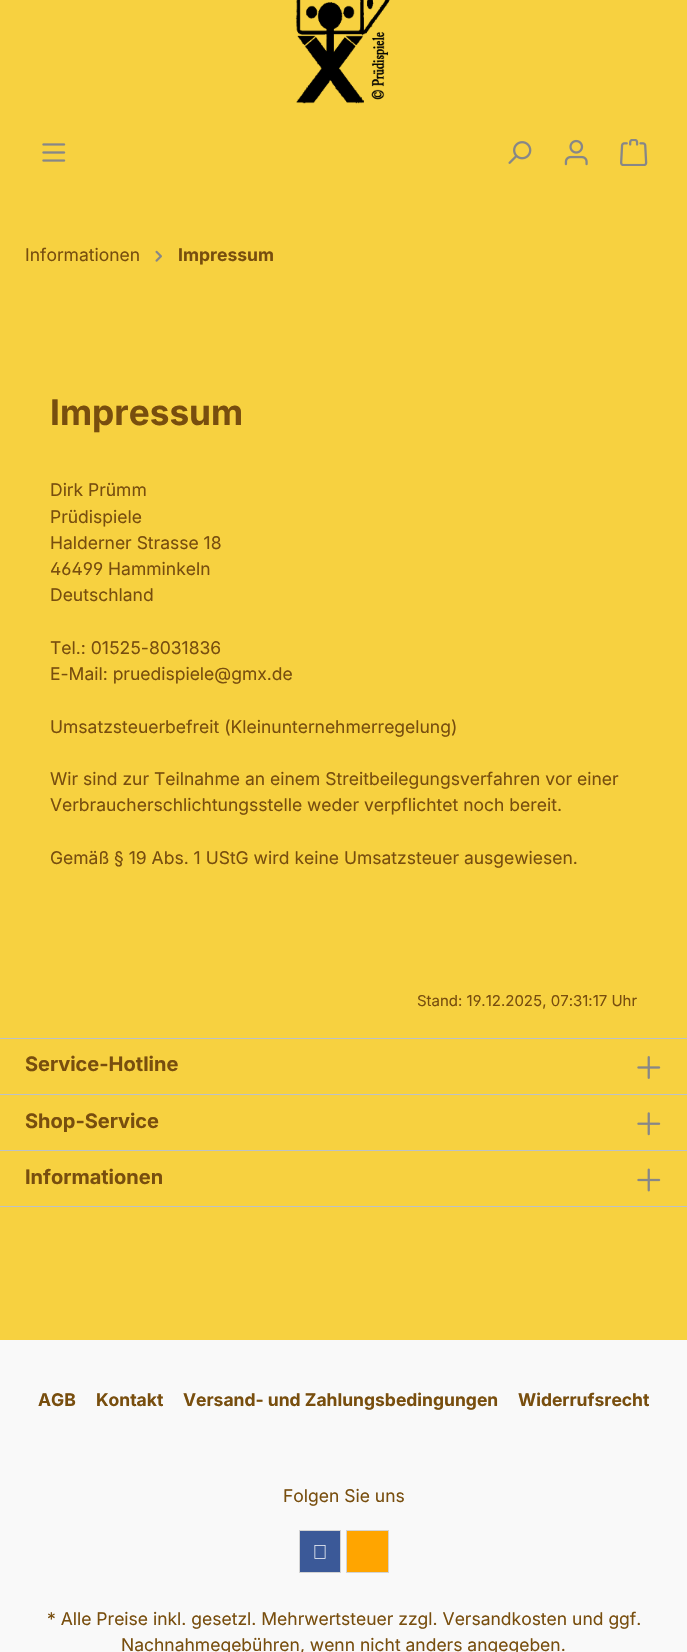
#include "include/core/SkBlurTypes.h"
#include "include/core/SkCanvas.h"
#include "include/core/SkData.h"
#include "include/core/SkFont.h"
#include "include/core/SkFontMgr.h"
#include "include/core/SkImage.h"
#include "include/core/SkMaskFilter.h"
#include "include/core/SkPaint.h"
#include "include/core/SkPathBuilder.h"
#include "include/core/SkTextBlob.h"
#include "include/effects/SkDashPathEffect.h"
#include "include/effects/SkGradientShader.h"
#include "include/utils/SkParsePath.h"

extern sk_sp<SkFontMgr> fontMgr;

static SkFont font(const char* family, int weight, float size, bool italic = false) {
    SkFontStyle style(weight, SkFontStyle::kNormal_Width,
        italic ? SkFontStyle::kItalic_Slant : SkFontStyle::kUpright_Slant);
    SkFont result(fontMgr->matchFamilyStyle(family, style), size);
    result.setSubpixel(true);
    return result;
}

static void drawLabel(SkCanvas* canvas, const char* s, float x, float y, const SkFont& font, SkColor color) {
    SkPaint ink(SkColor4f::FromColor(color));
    ink.setAntiAlias(true);
    canvas->drawString(s, x, y, font, ink);
}

static void fillRect(SkCanvas* canvas, float x, float y, float w, float h, SkColor color) {
    SkPaint ink(SkColor4f::FromColor(color));
    ink.setAntiAlias(true);
    canvas->drawRect(SkRect::MakeXYWH(x, y, w, h), ink);
}

static void drawPhoto(SkCanvas* canvas, const char* path, float x, float y, float w, float h) {
    auto image = SkImages::DeferredFromEncodedData(SkData::MakeFromFileName(path));
    canvas->drawImageRect(image, SkRect::MakeXYWH(x, y, w, h), SkSamplingOptions());
}

void draw(SkCanvas* canvas) {
    SkPaint paint;
    paint.setAntiAlias(true);
    canvas->clear(0xFFF7D140);
    drawPhoto(canvas, "assets/img1.png", 295, 0, 95, 104);
    drawPhoto(canvas, "assets/img2.png", 42, 143, 24, 19);
    drawPhoto(canvas, "assets/img3.png", 508, 141, 24, 23);
    drawPhoto(canvas, "assets/img4.png", 564, 139, 24, 27);
    drawPhoto(canvas, "assets/img5.png", 620, 139, 28, 27);
    SkFont font1 = font("Inter", 400, 17.5f);
    drawLabel(canvas, "Informationen", 25, 261, font1, 0xFF784E0E);
    drawPhoto(canvas, "assets/img6.png", 155, 250, 7, 12);
    SkFont font2 = font("Inter", 700, 17.5f);
    drawLabel(canvas, "Impressum", 178, 261, font2, 0xFF784E0E);
    SkFont font3 = font("Inter", 700, 35.25f);
    drawLabel(canvas, "Impressum", 50, 425, font3, 0xFF784E0E);
    drawLabel(canvas, "Dirk Prümm", 50, 496, font1, 0xFF784E0E);
    drawLabel(canvas, "Prüdispiele", 50, 523, font1, 0xFF784E0E);
    drawLabel(canvas, "Halderner Strasse 18", 50, 549, font1, 0xFF784E0E);
    SkFont font4 = font("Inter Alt", 400, 17.5f);
    drawLabel(canvas, "46499 Hamminkeln", 50, 575, font4, 0xFF784E0E);
    drawLabel(canvas, "Deutschland", 50, 601, font1, 0xFF784E0E);
    drawLabel(canvas, "Tel.: 01525-8031836", 50, 654, font1, 0xFF784E0E);
    drawLabel(canvas, "E-Mail: pruedispiele@gmx.de", 50, 680, font1, 0xFF784E0E);
    drawLabel(canvas, "Umsatzsteuerbefreit (Kleinunternehmerregelung)", 50, 733, font1, 0xFF784E0E);
    drawLabel(canvas, "Wir sind zur Teilnahme an einem Streitbeilegungsverfahren vor einer", 50, 785, font1, 0xFF784E0E);
    drawLabel(canvas, "Verbraucherschlichtungsstelle weder verpflichtet noch bereit.", 50, 811, font1, 0xFF784E0E);
    drawLabel(canvas, "Gemäß § 19 Abs. 1 UStG wird keine Umsatzsteuer ausgewiesen.", 50, 864, font1, 0xFF784E0E);
    SkFont font5 = font("Inter Alt", 400, 15);
    drawLabel(canvas, "Stand: 19.12.2025, 07:31:17 Uhr", 417, 1006, font5, 0xFF784E0E);
    fillRect(canvas, 0, 1038, 687, 1, 0xFFBCC1C7);
    fillRect(canvas, 0, 1094, 687, 1, 0xFFBCC1C7);
    SkFont font6 = font("Inter", 700, 20);
    drawLabel(canvas, "Service-Hotline", 25, 1071, font6, 0xFF784E0E);
    drawPhoto(canvas, "assets/img7.png", 637, 1056, 24, 23);
    fillRect(canvas, 0, 1150, 687, 1, 0xFFBCC1C7);
    drawLabel(canvas, "Shop-Service", 25, 1128, font6, 0xFF784E0E);
    drawPhoto(canvas, "assets/img8.png", 637, 1112, 24, 24);
    fillRect(canvas, 0, 1206, 687, 1, 0xFFBCC1C7);
    drawLabel(canvas, "Informationen", 25, 1184, font6, 0xFF784E0E);
    drawPhoto(canvas, "assets/img9.png", 637, 1168, 24, 24);
    fillRect(canvas, 0, 1340, 687, 312, 0xFFF9F9F9);
    drawLabel(canvas, "AGB", 38, 1406, font2, 0xFF784E0E);
    drawLabel(canvas, "Kontakt", 96, 1406, font2, 0xFF784E0E);
    drawLabel(canvas, "Versand- und Zahlungsbedingungen", 183, 1406, font2, 0xFF784E0E);
    drawLabel(canvas, "Widerrufsrecht", 518, 1406, font2, 0xFF784E0E);
    drawLabel(canvas, "Folgen Sie uns", 283, 1502, font1, 0xFF784E0E);
    paint.setColor(0xFF3B5998);
    canvas->drawRect(SkRect::MakeXYWH(299.5f, 1530.5f, 41, 42), paint);
    paint.setStroke(true);
    paint.setStrokeWidth(1);
    paint.setColor(0xFFD3D3D3);
    canvas->drawRect(SkRect::MakeXYWH(299.5f, 1530.5f, 41, 42), paint);
    drawPhoto(canvas, "assets/img10.png", 314, 1545, 12, 14);
    paint.setStroke(false);
    paint.setColor(0xFFFFA500);
    canvas->drawRect(SkRect::MakeXYWH(346.5f, 1530.5f, 42, 42), paint);
    paint.setStroke(true);
    paint.setColor(0xFFD3D3D3);
    canvas->drawRect(SkRect::MakeXYWH(346.5f, 1530.5f, 42, 42), paint);
    drawLabel(canvas, "* Alle Preise inkl. gesetzl. Mehrwertsteuer zzgl. Versandkosten und ggf.", 47, 1625, font1, 0xFF784E0E);
    drawLabel(canvas, "Nachnahmegebühren, wenn nicht anders angegeben.", 121, 1651, font1, 0xFF784E0E);
}
